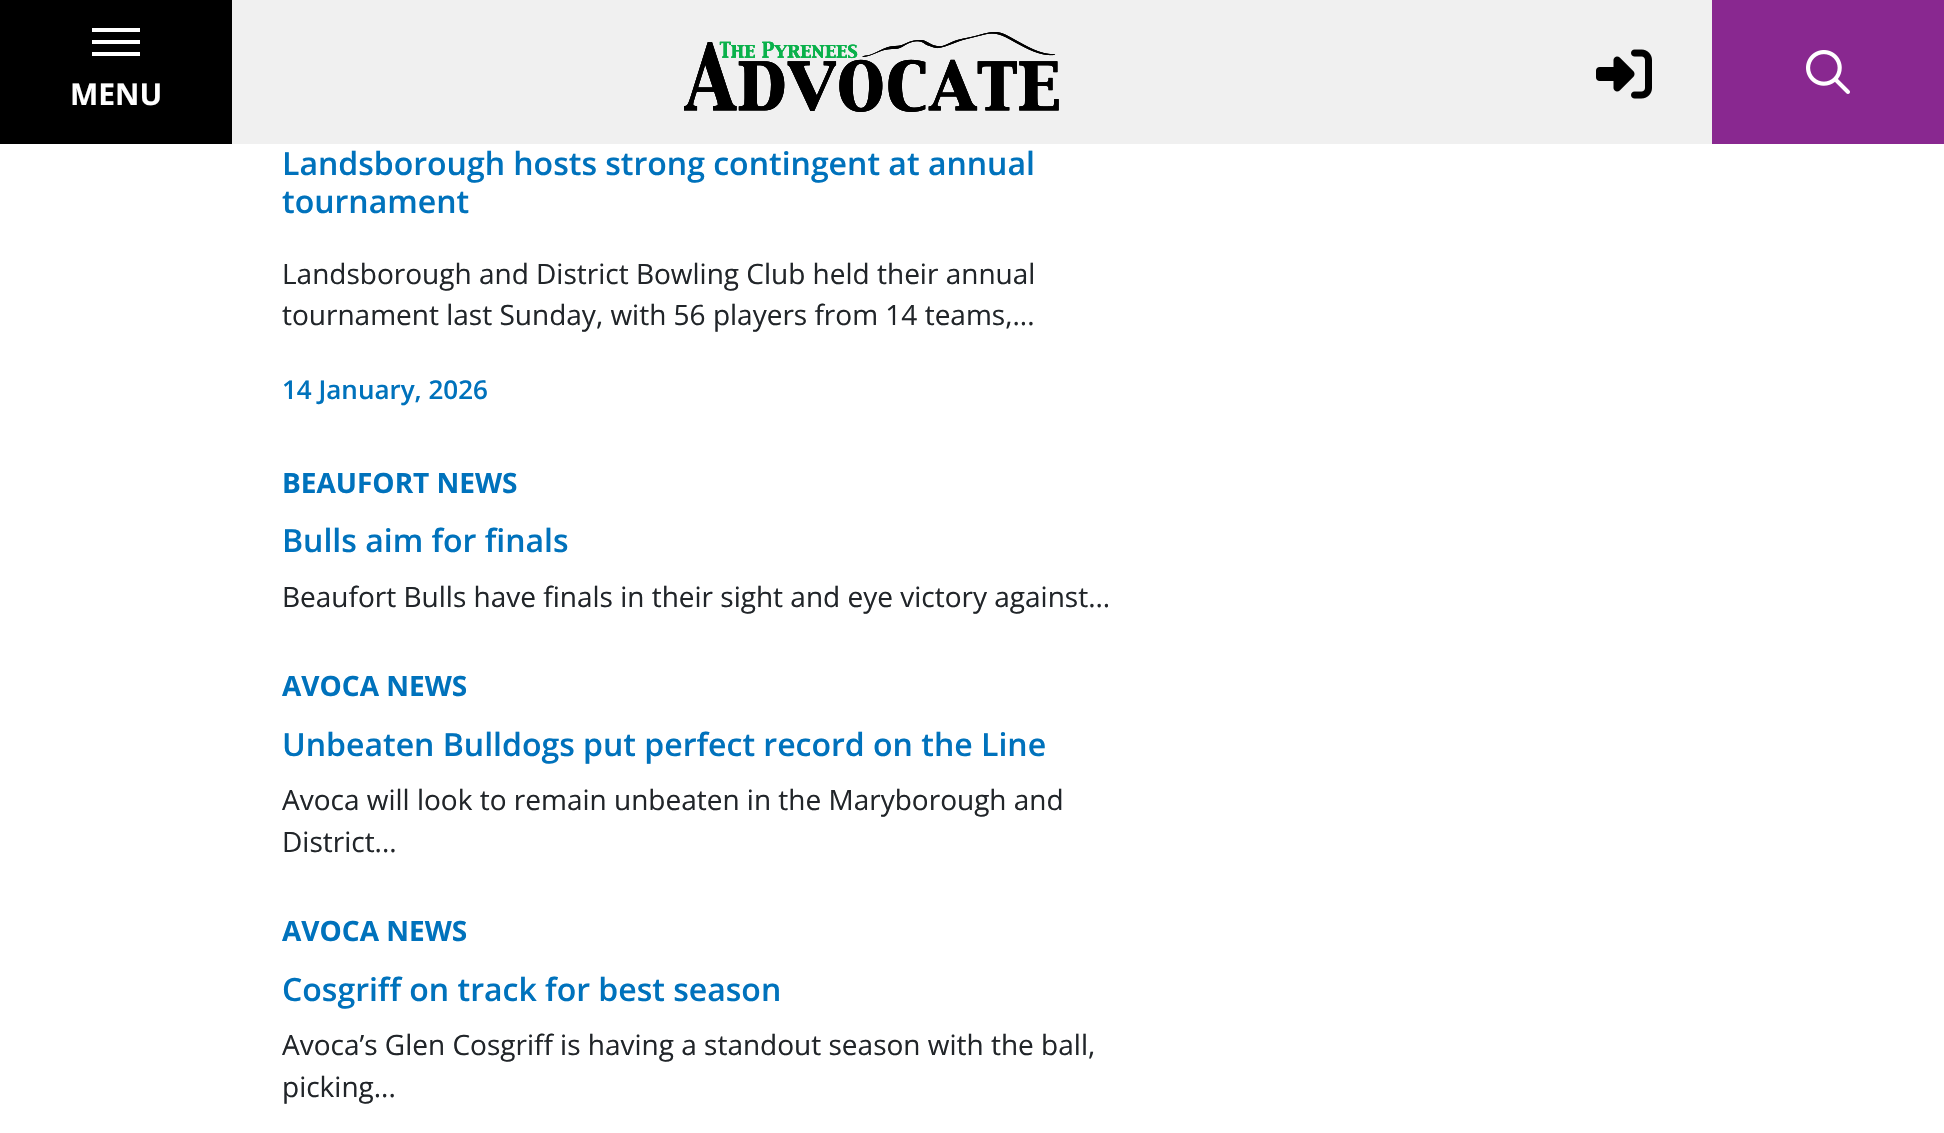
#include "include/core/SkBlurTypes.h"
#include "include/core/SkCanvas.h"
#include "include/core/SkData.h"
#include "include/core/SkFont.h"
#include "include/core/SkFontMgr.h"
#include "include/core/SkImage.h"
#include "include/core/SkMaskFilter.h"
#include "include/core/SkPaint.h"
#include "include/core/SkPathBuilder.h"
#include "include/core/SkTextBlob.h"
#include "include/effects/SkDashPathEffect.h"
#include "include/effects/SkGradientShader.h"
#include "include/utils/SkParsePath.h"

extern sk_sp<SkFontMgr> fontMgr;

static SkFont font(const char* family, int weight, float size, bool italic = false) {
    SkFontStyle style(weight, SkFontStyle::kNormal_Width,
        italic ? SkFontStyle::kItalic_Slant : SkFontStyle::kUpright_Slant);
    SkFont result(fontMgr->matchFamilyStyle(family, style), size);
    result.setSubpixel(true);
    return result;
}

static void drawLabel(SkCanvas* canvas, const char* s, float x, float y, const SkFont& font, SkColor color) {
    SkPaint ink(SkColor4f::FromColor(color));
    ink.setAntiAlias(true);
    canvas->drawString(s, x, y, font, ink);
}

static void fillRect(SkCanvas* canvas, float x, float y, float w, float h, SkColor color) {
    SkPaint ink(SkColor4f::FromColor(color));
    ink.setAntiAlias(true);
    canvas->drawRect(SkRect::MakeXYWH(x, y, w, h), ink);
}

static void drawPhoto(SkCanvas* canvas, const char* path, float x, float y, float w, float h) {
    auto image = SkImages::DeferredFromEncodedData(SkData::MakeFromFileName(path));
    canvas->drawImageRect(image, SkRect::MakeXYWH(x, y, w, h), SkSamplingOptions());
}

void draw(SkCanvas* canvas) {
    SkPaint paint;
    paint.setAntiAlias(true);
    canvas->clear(0xFFFFFFFF);
    fillRect(canvas, 232, 0, 1480, 144, 0xFFF0F0F0);
    fillRect(canvas, 0, 0, 232, 144, 0xFF000000);
    fillRect(canvas, 92, 28, 48, 4, 0xFFFFFFFF);
    fillRect(canvas, 92, 40, 48, 4, 0xFFFFFFFF);
    fillRect(canvas, 92, 52, 48, 4, 0xFFFFFFFF);
    SkFont font1 = font("Open Sans", 700, 30);
    drawLabel(canvas, "MENU", 70, 105, font1, 0xFFFFFFFF);
    drawPhoto(canvas, "assets/img1.png", 684, 32, 375, 80);
    drawPhoto(canvas, "assets/img2.png", 1596, 49, 56, 50);
    fillRect(canvas, 1712, 0, 232, 144, 0xFF892890);
    drawPhoto(canvas, "assets/img3.png", 1806, 50, 44, 44);
    SkFont font2 = font("Open Sans", 600, 32);
    drawLabel(canvas, "Landsborough hosts strong contingent at annual", 282, 175, font2, 0xFF0072BC);
    drawLabel(canvas, "tournament", 282, 213, font2, 0xFF0072BC);
    SkFont font3 = font("Open Sans", 400, 28);
    drawLabel(canvas, "Landsborough and District Bowling Club held their annual", 282, 284, font3, 0xFF212529);
    drawLabel(canvas, "tournament last Sunday, with 56 players from 14 teams,...", 282, 325, font3, 0xFF212529);
    SkFont font4 = font("Open Sans", 600, 26);
    drawLabel(canvas, "14 January, 2026", 282, 399, font4, 0xFF0072BC);
    SkFont font5 = font("Open Sans", 700, 28);
    drawLabel(canvas, "BEAUFORT NEWS", 282, 493, font5, 0xFF0072BC);
    drawLabel(canvas, "Bulls aim for finals", 282, 552, font2, 0xFF0072BC);
    drawLabel(canvas, "Beaufort Bulls have finals in their sight and eye victory against...", 282, 607, font3, 0xFF212529);
    drawLabel(canvas, "AVOCA NEWS", 282, 696, font5, 0xFF0072BC);
    drawLabel(canvas, "Unbeaten Bulldogs put perfect record on the Line", 282, 756, font2, 0xFF0072BC);
    drawLabel(canvas, "Avoca will look to remain unbeaten in the Maryborough and", 282, 810, font3, 0xFF212529);
    drawLabel(canvas, "District...", 282, 852, font3, 0xFF212529);
    drawLabel(canvas, "AVOCA NEWS", 282, 941, font5, 0xFF0072BC);
    drawLabel(canvas, "Cosgriff on track for best season", 282, 1001, font2, 0xFF0072BC);
    drawLabel(canvas, "Avoca’s Glen Cosgriff is having a standout season with the ball,", 282, 1055, font3, 0xFF212529);
    drawLabel(canvas, "picking...", 282, 1097, font3, 0xFF212529);
}
